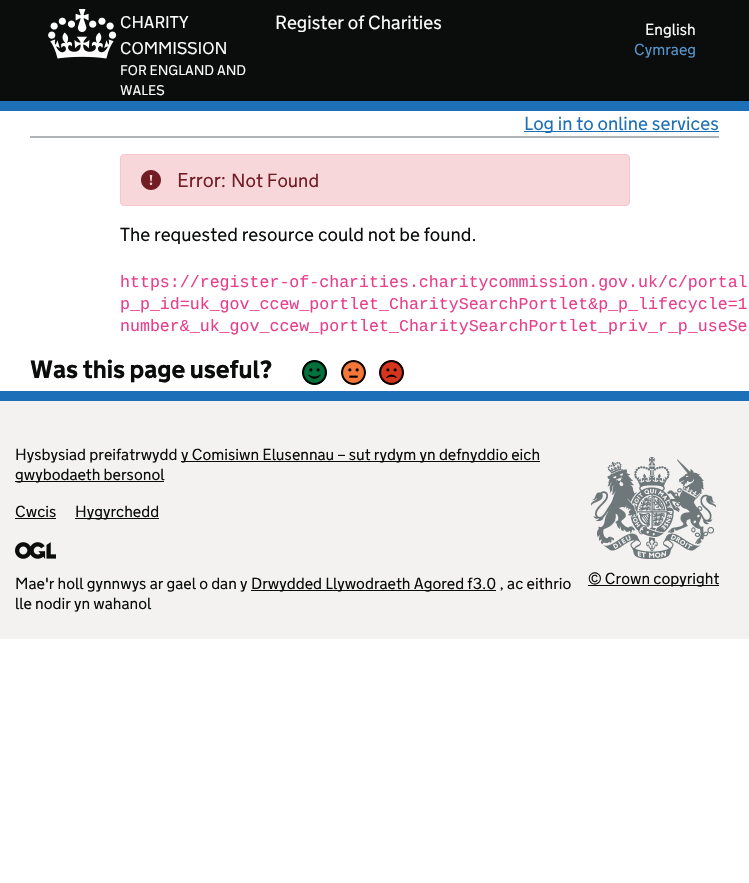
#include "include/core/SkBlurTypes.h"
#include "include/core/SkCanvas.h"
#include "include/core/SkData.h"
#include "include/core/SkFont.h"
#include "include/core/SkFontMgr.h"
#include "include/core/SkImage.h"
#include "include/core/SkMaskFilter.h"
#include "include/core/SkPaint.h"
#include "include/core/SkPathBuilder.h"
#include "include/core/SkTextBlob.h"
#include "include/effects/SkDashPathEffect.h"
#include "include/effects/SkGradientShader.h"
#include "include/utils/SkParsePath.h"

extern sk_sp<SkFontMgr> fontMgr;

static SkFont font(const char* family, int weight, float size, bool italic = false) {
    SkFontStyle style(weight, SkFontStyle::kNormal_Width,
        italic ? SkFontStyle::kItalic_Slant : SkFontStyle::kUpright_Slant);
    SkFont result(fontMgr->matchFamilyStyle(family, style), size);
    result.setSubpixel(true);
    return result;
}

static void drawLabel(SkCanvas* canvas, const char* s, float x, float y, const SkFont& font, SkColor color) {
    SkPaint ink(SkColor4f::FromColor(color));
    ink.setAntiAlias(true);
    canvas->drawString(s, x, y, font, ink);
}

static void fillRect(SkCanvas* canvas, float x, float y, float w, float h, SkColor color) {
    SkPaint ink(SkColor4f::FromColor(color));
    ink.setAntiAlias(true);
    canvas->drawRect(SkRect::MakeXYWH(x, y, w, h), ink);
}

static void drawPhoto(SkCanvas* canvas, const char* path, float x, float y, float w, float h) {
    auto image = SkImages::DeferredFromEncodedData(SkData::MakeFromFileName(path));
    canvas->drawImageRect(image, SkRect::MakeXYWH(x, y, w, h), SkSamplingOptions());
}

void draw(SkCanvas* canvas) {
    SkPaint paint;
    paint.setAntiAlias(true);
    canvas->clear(0xFFFFFFFF);
    fillRect(canvas, 0, 0, 749, 101, 0xFF0B0C0C);
    fillRect(canvas, 0, 101, 749, 10, 0xFF1D70B8);
    drawPhoto(canvas, "assets/img1.png", 48, 9, 69, 50);
    SkFont font1 = font("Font", 300, 17);
    drawLabel(canvas, "CHARITY", 120, 28, font1, 0xFFFFFFFF);
    drawLabel(canvas, "COMMISSION", 120, 54, font1, 0xFFFFFFFF);
    SkFont font2 = font("Font", 300, 14);
    drawLabel(canvas, "FOR ENGLAND AND", 120, 75, font2, 0xFFFFFFFF);
    drawLabel(canvas, "WALES", 120, 95, font2, 0xFFFFFFFF);
    SkFont font3 = font("Font", 300, 19);
    drawLabel(canvas, "Register of Charities", 275, 29, font3, 0xFFFFFFFF);
    SkFont font4 = font("Font", 300, 16);
    drawLabel(canvas, "English", 645, 35, font4, 0xFFFFFFFF);
    drawLabel(canvas, "Cymraeg", 634, 55, font4, 0xFF5694CA);
    fillRect(canvas, 30, 136, 689, 2, 0xFFB1B4B6);
    fillRect(canvas, 524, 131, 195, 1, 0xFF1D70B8);
    drawLabel(canvas, "Log in to online services", 524, 130, font3, 0xFF1D70B8);
    paint.setColor(0xFFF8D7DA);
    canvas->drawRoundRect(SkRect::MakeXYWH(120.5f, 154.5f, 509, 51), 3.5f, 3.5f, paint);
    paint.setStroke(true);
    paint.setStrokeWidth(1);
    paint.setColor(0xFFF5C6CB);
    canvas->drawRoundRect(SkRect::MakeXYWH(120.5f, 154.5f, 509, 51), 3.5f, 3.5f, paint);
    drawPhoto(canvas, "assets/img2.png", 141, 170, 20, 20);
    SkFont font5 = font("Font", 300, 20);
    drawLabel(canvas, "Error:", 177, 187, font5, 0xFF721C24);
    drawLabel(canvas, "Not Found", 231, 187, font3, 0xFF721C24);
    drawLabel(canvas, "The requested resource could not be found.", 120, 241, font3, 0xFF0B0C0C);
    SkFont font6 = font("Liberation Mono", 400, 16.6f);
    drawLabel(canvas, "https://register-of-charities.charitycommission.gov.uk/c/portal", 120, 287, font6, 0xFFE83E8C);
    drawLabel(canvas, "p_p_id=uk_gov_ccew_portlet_CharitySearchPortlet&p_p_lifecycle=1", 120, 309, font6, 0xFFE83E8C);
    drawLabel(canvas, "number&_uk_gov_ccew_portlet_CharitySearchPortlet_priv_r_p_useSe", 120, 331, font6, 0xFFE83E8C);
    SkFont font7 = font("Font", 700, 25);
    drawLabel(canvas, "Was this page useful?", 30, 378, font7, 0xFF0B0C0C);
    paint.setStroke(false);
    paint.setColor(0xFF00703C);
    canvas->drawCircle(314.5f, 372.5f, 12.5f, paint);
    drawPhoto(canvas, "assets/img3.png", 302, 360, 25, 25);
    paint.setColor(0xFFF47738);
    canvas->drawCircle(353.5f, 372.5f, 12.5f, paint);
    drawPhoto(canvas, "assets/img4.png", 341, 360, 25, 25);
    paint.setColor(0xFFD4351C);
    canvas->drawCircle(391.5f, 372.5f, 12.5f, paint);
    drawPhoto(canvas, "assets/img5.png", 379, 360, 25, 25);
    fillRect(canvas, 0, 401, 749, 238, 0xFFF3F2F1);
    fillRect(canvas, 0, 391, 749, 10, 0xFF1D70B8);
    drawLabel(canvas, "Hysbysiad preifatrwydd", 15, 460, font4, 0xFF0B0C0C);
    fillRect(canvas, 181, 461, 359, 1, 0xFF0B0C0C);
    drawLabel(canvas, "y Comisiwn Elusennau – sut rydym yn defnyddio eich", 181, 460, font4, 0xFF0B0C0C);
    fillRect(canvas, 15, 481, 149, 1, 0xFF0B0C0C);
    drawLabel(canvas, "gwybodaeth bersonol", 15, 480, font4, 0xFF0B0C0C);
    drawLabel(canvas, "Cwcis", 15, 517, font4, 0xFF0B0C0C);
    fillRect(canvas, 15, 518, 41, 1, 0xFF0B0C0C);
    fillRect(canvas, 75, 518, 84, 1, 0xFF0B0C0C);
    drawLabel(canvas, "Hygyrchedd", 75, 517, font4, 0xFF0B0C0C);
    drawPhoto(canvas, "assets/img6.png", 15, 542, 41, 17);
    drawLabel(canvas, "Mae'r holl gynnwys ar gael o dan y", 15, 589, font4, 0xFF0B0C0C);
    fillRect(canvas, 251, 590, 245, 1, 0xFF0B0C0C);
    drawLabel(canvas, "Drwydded Llywodraeth Agored f3.0 , ac eithrio", 251, 589, font4, 0xFF0B0C0C);
    drawLabel(canvas, "lle nodir yn wahanol", 15, 609, font4, 0xFF0B0C0C);
    drawPhoto(canvas, "assets/img7.png", 591, 457, 125, 102);
    fillRect(canvas, 588, 585, 131, 1, 0xFF0B0C0C);
    drawLabel(canvas, "© Crown copyright", 588, 584, font4, 0xFF0B0C0C);
}
